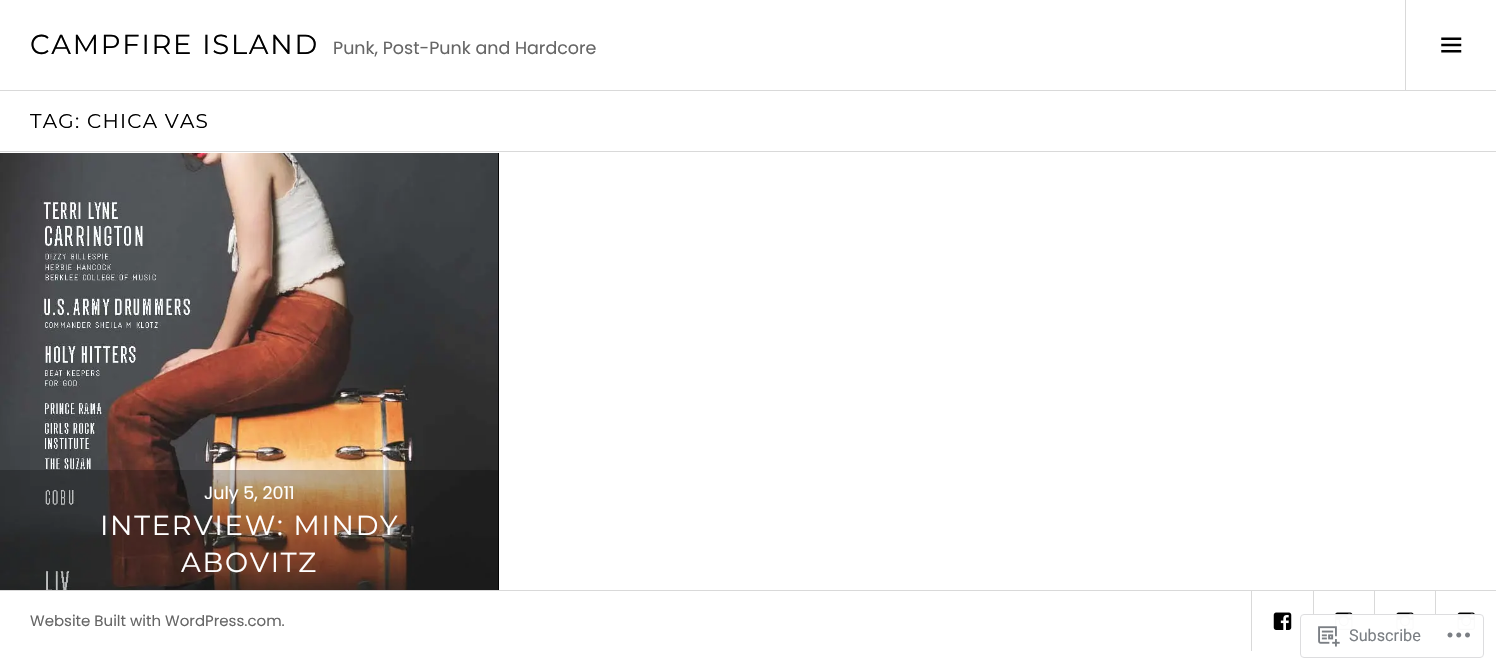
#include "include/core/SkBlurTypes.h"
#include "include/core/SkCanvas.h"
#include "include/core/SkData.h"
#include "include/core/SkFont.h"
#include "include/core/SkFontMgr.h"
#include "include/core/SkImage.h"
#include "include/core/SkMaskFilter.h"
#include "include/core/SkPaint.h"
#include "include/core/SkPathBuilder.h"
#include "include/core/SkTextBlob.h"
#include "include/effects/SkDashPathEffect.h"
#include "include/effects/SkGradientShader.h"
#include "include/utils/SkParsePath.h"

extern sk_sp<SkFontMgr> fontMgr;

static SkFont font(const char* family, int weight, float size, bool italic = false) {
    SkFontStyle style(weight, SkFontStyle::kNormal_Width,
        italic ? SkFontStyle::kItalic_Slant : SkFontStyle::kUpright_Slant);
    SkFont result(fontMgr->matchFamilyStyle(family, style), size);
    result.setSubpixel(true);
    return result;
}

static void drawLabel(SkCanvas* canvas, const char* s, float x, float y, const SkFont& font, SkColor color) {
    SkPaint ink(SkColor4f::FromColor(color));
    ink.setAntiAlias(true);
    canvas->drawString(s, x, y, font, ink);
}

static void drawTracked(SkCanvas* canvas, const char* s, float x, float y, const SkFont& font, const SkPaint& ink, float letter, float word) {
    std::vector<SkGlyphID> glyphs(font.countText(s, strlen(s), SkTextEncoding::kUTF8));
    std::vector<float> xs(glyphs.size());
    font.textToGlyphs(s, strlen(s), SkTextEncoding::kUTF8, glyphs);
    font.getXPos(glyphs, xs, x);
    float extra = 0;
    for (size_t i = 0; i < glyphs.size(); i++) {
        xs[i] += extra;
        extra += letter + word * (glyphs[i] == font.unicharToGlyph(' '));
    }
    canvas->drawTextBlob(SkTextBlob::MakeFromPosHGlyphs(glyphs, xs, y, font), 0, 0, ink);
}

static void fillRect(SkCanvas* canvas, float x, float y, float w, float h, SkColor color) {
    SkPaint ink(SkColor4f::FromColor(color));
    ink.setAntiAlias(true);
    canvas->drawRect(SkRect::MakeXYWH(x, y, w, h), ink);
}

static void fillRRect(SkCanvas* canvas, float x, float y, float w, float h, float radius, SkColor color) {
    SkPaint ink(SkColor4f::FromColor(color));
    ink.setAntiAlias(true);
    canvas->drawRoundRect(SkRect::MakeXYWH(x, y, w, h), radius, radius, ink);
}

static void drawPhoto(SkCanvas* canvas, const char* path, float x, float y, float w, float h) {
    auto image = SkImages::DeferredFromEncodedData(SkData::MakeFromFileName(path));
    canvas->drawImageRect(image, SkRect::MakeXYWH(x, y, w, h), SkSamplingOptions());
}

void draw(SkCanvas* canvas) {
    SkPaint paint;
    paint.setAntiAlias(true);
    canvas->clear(0xFFFFFFFF);
    fillRect(canvas, 0, 90, 1496, 1, 0xFFD9D9D9);
    SkFont font1 = font("Montserrat", 400, 27.5f);
    paint.setColor(0xFF000000);
    drawTracked(canvas, "CAMPFIRE ISLAND", 30, 54, font1, paint, 1.75f, 0);
    SkFont font2 = font("Poppins", 400, 17.5f);
    drawLabel(canvas, "Punk, Post-Punk and Hardcore", 333, 54, font2, 0xFF666666);
    fillRect(canvas, 1405, 0, 1, 90, 0xFFD9D9D9);
    drawPhoto(canvas, "assets/img1.png", 1441, 37, 21, 16);
    fillRect(canvas, 0, 151, 1496, 1, 0xFFD9D9D9);
    SkFont font3 = font("Montserrat", 400, 20);
    drawTracked(canvas, "TAG: CHICA VAS", 30, 128, font3, paint, 1.25f, 0);
    fillRect(canvas, 498, 153, 1, 437, 0xFF000000);
    drawPhoto(canvas, "assets/img2.png", 0, 153, 499, 437);
    fillRect(canvas, 0, 470, 498, 120, 0x40000000);
    drawLabel(canvas, "July 5, 2011", 204, 499, font2, 0xFFFFFFFF);
    paint.setColor(0xFFFFFFFF);
    drawTracked(canvas, "INTERVIEW: MINDY", 100, 535, font1, paint, 1.75f, 0);
    drawTracked(canvas, "ABOVITZ", 181, 572, font1, paint, 1.75f, 0);
    fillRect(canvas, 0, 590, 1496, 1, 0xFFD9D9D9);
    SkFont font4 = font("Poppins", 400, 15);
    drawLabel(canvas, "Website Built with WordPress.com.", 30, 626, font4, 0xFF666666);
    canvas->save();
    canvas->clipRect(SkRect::MakeXYWH(0, 591, 1496, 60));
    paint.setStroke(true);
    paint.setStrokeWidth(1);
    paint.setColor(0xFFD9D9D9);
    canvas->drawRect(SkRect::MakeXYWH(1251.5f, 590.5f, 62, 62), paint);
    canvas->restore();
    drawPhoto(canvas, "assets/img3.png", 1273, 612, 19, 18);
    canvas->save();
    canvas->clipRect(SkRect::MakeXYWH(0, 591, 1496, 60));
    canvas->drawRect(SkRect::MakeXYWH(1313.5f, 590.5f, 61, 62), paint);
    canvas->restore();
    drawPhoto(canvas, "assets/img4.png", 1335, 612, 18, 18);
    canvas->save();
    canvas->clipRect(SkRect::MakeXYWH(0, 591, 1496, 60));
    canvas->drawRect(SkRect::MakeXYWH(1374.5f, 590.5f, 61, 62), paint);
    canvas->restore();
    drawPhoto(canvas, "assets/img5.png", 1396, 612, 18, 18);
    drawPhoto(canvas, "assets/img6.png", 1457, 612, 18, 18);
    fillRRect(canvas, 1300, 614, 184, 44, 4, 0xFAFFFFFF);
    paint.setColor(0xFADCDCDE);
    canvas->drawRoundRect(SkRect::MakeXYWH(1300.5f, 614.5f, 183, 43), 3.5f, 3.5f, paint);
    drawPhoto(canvas, "assets/img7.png", 1318, 626, 22, 21);
    SkFont font5 = font("Roboto", 400, 16.25f);
    drawLabel(canvas, "Subscribe", 1349, 641, font5, 0xFF7B7F84);
    drawPhoto(canvas, "assets/img8.png", 1447, 632, 23, 6);
}
